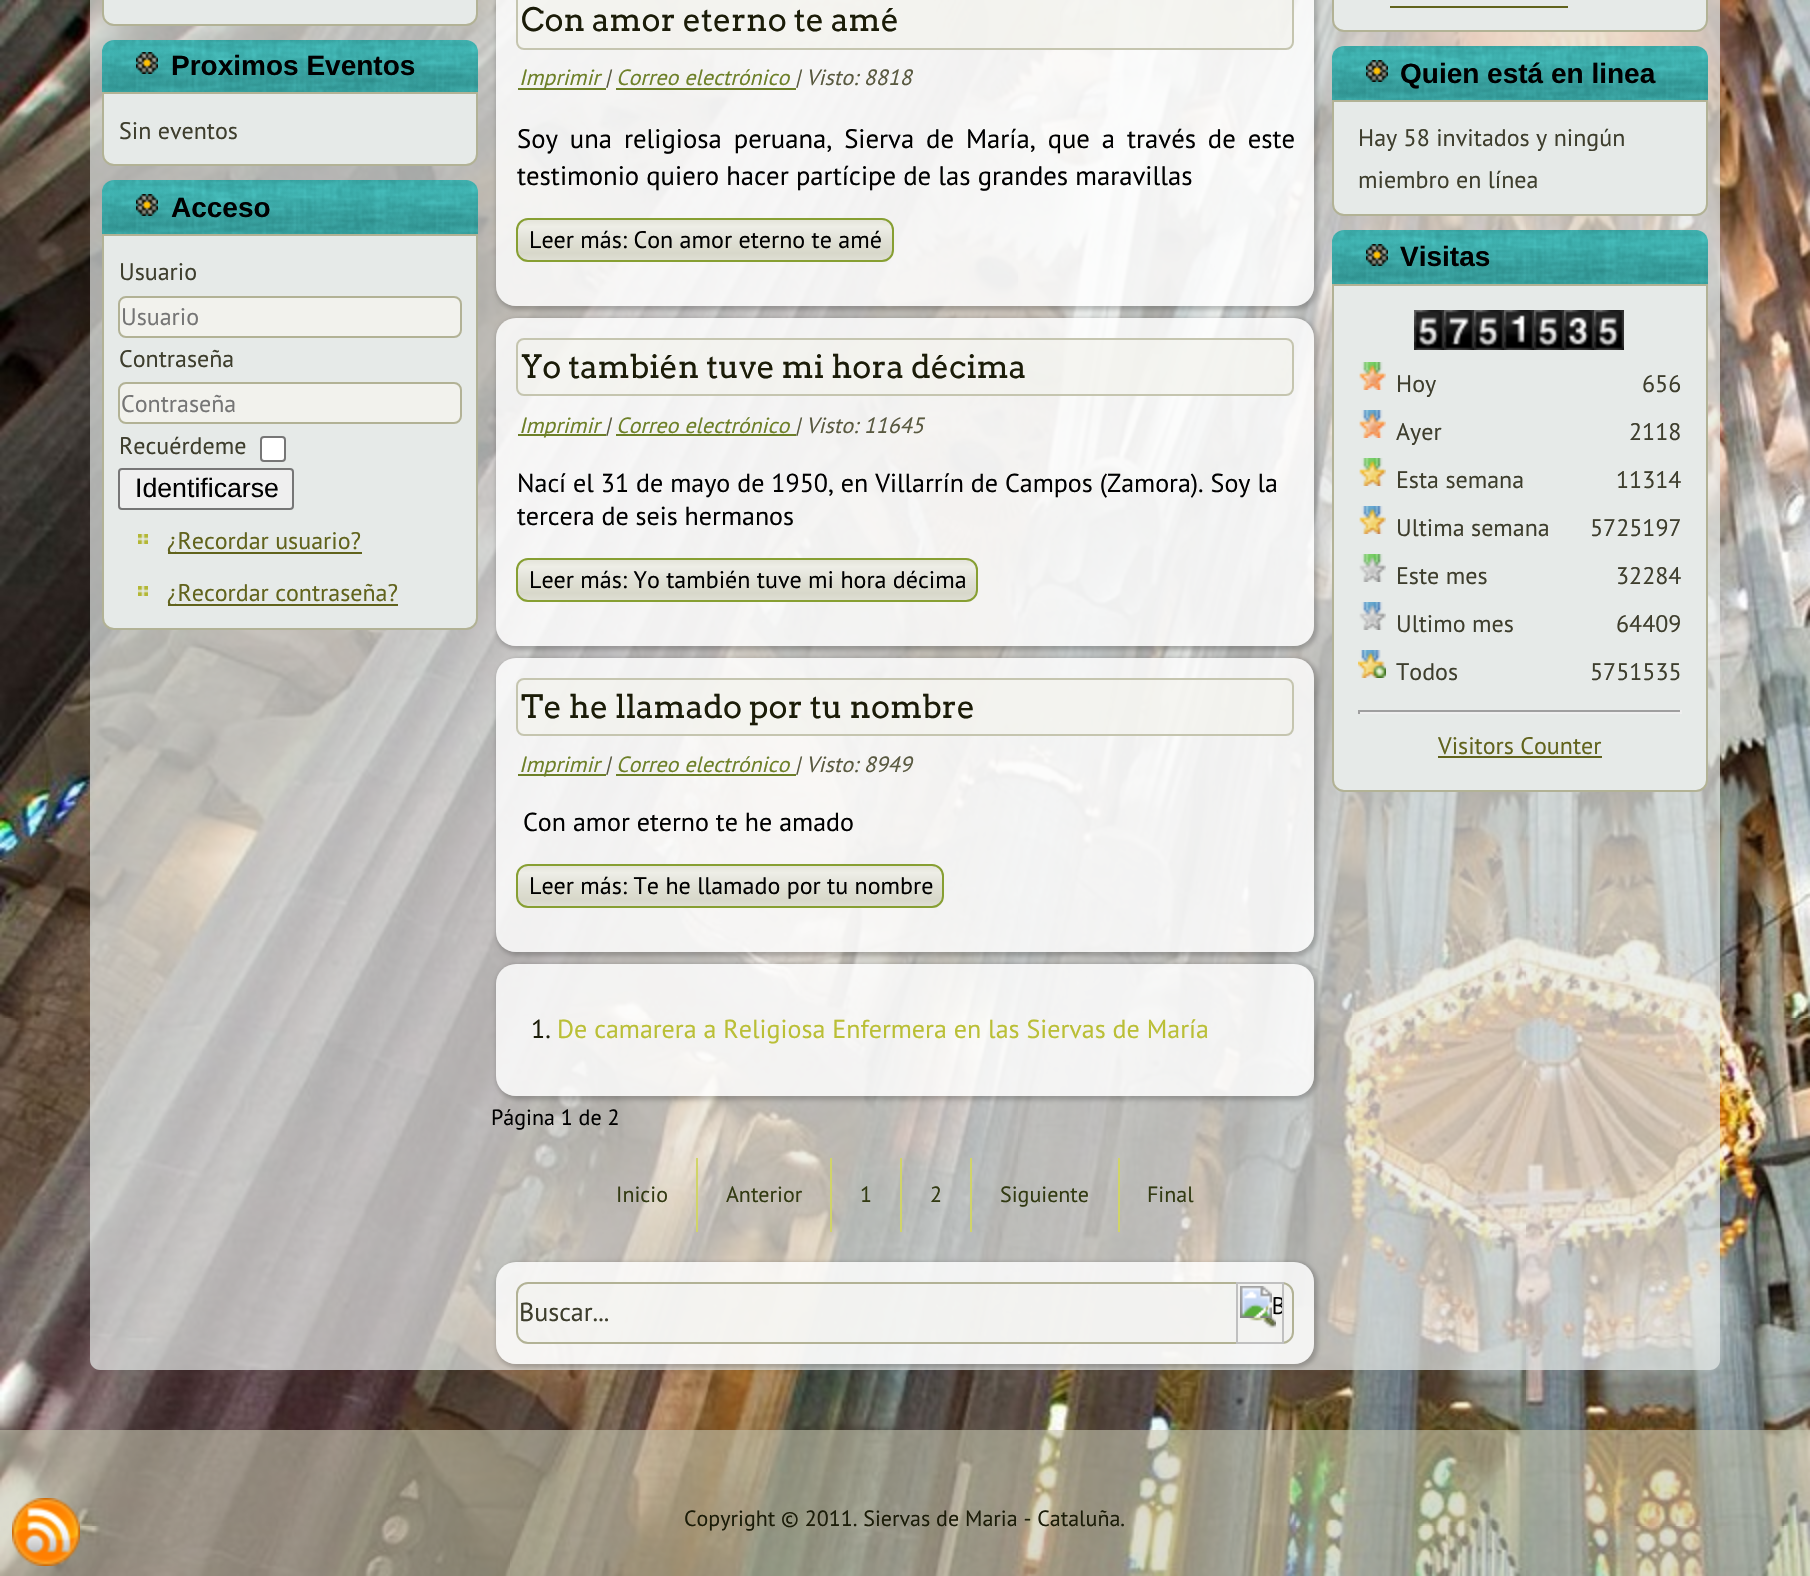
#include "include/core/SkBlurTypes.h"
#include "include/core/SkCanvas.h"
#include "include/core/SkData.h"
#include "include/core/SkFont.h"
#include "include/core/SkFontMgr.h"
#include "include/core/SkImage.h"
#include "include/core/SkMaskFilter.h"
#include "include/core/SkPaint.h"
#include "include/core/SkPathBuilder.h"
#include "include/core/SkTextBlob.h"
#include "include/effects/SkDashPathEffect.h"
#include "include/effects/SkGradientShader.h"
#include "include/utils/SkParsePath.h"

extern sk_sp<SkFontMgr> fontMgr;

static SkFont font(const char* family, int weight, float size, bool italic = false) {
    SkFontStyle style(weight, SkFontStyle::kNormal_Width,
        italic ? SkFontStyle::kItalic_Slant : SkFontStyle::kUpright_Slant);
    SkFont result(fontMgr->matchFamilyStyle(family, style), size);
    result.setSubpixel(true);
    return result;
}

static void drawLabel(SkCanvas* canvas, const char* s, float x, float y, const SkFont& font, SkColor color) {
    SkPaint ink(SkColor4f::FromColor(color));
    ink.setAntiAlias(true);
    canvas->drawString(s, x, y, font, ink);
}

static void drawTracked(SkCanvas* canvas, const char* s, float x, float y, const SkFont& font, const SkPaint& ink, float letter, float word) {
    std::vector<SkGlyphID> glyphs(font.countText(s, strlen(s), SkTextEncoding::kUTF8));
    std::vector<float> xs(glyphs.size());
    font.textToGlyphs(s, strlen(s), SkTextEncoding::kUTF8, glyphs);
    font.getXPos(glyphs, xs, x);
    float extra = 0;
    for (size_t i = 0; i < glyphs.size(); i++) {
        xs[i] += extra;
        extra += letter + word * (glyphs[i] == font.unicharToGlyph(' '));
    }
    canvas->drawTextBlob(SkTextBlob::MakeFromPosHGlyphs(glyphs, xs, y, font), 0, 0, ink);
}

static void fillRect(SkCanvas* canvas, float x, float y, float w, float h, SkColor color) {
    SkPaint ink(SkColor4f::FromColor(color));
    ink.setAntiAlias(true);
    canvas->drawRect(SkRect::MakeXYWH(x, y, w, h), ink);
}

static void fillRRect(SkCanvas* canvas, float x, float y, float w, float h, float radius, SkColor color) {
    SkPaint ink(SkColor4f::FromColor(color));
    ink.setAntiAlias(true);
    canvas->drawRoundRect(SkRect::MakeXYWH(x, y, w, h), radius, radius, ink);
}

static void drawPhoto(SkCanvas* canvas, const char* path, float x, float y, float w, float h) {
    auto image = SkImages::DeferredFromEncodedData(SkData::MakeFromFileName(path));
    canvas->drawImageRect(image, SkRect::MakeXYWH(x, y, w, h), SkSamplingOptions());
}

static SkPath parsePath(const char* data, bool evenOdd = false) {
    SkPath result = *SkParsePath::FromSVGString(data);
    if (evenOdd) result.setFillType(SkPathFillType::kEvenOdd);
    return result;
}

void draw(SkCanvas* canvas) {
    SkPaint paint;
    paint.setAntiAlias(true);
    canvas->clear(0xFFFFFFFF);
    drawPhoto(canvas, "assets/img1.png", 0, 0, 1810, 1576);
    paint.setColor(0xB3E6EAE8);
    canvas->drawPath(parsePath("M90-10H1720V1360C1720 1365.5 1715.5 1370 1710 1370H100C94.5 1370 90 1365.5 90 1360Z"), paint);
    paint.setColor(0xFFE6EAE8);
    canvas->drawPath(parsePath("M103-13H477V14C477 20 472 25 466 25H114C108 25 103 20 103 14Z"), paint);
    paint.setStroke(true);
    paint.setStrokeWidth(2);
    paint.setColor(0xFFB2B295);
    canvas->drawPath(parsePath("M103-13H477V14C477 20 472 25 466 25H114C108 25 103 20 103 14Z"), paint);
    drawPhoto(canvas, "assets/img2.png", 102, 40, 376, 52);
    drawPhoto(canvas, "assets/img3.png", 136, 52, 22, 22);
    SkFont font1 = font("Liberation Sans", 700, 28);
    drawLabel(canvas, "Proximos Eventos", 171, 75, font1, 0xFF000000);
    paint.setStroke(false);
    paint.setColor(0xFFE6EAE8);
    canvas->drawPath(parsePath("M103 93H477V154C477 160 472 165 466 165H114C108 165 103 160 103 154Z"), paint);
    paint.setStroke(true);
    paint.setColor(0xFFB2B295);
    canvas->drawPath(parsePath("M103 93H477V154C477 160 472 165 466 165H114C108 165 103 160 103 154Z"), paint);
    SkFont font2 = font("PT Sans", 400, 24);
    drawLabel(canvas, "Sin eventos", 119, 139, font2, 0xFF3E3E2D);
    drawPhoto(canvas, "assets/img4.png", 102, 180, 376, 54);
    drawPhoto(canvas, "assets/img5.png", 136, 194, 22, 22);
    drawLabel(canvas, "Acceso", 171, 217, font1, 0xFF000000);
    paint.setStroke(false);
    paint.setColor(0xFFE6EAE8);
    canvas->drawPath(parsePath("M103 235H477V618C477 624 472 629 466 629H114C108 629 103 624 103 618Z"), paint);
    paint.setStroke(true);
    paint.setColor(0xFFB2B295);
    canvas->drawPath(parsePath("M103 235H477V618C477 624 472 629 466 629H114C108 629 103 624 103 618Z"), paint);
    drawLabel(canvas, "Usuario", 119, 280, font2, 0xFF3E3E2D);
    paint.setStroke(false);
    paint.setColor(0xFFF2F2ED);
    canvas->drawRoundRect(SkRect::MakeXYWH(119, 297, 342, 40), 7, 7, paint);
    paint.setStroke(true);
    paint.setColor(0xFFB2B295);
    canvas->drawRoundRect(SkRect::MakeXYWH(119, 297, 342, 40), 7, 7, paint);
    drawLabel(canvas, "Usuario", 121, 325, font2, 0xFF757575);
    drawLabel(canvas, "Contraseña", 119, 367, font2, 0xFF3E3E2D);
    paint.setStroke(false);
    paint.setColor(0xFFF2F2ED);
    canvas->drawRoundRect(SkRect::MakeXYWH(119, 383, 342, 40), 7, 7, paint);
    paint.setStroke(true);
    paint.setColor(0xFFB2B295);
    canvas->drawRoundRect(SkRect::MakeXYWH(119, 383, 342, 40), 7, 7, paint);
    drawLabel(canvas, "Contraseña", 121, 412, font2, 0xFF757575);
    drawLabel(canvas, "Recuérdeme", 119, 454, font2, 0xFF3E3E2D);
    paint.setStroke(false);
    paint.setColor(0xFFFFFFFF);
    canvas->drawRoundRect(SkRect::MakeXYWH(261, 437, 24, 24), 3, 3, paint);
    paint.setStroke(true);
    paint.setColor(0xFF767676);
    canvas->drawRoundRect(SkRect::MakeXYWH(261, 437, 24, 24), 3, 3, paint);
    paint.setStroke(false);
    paint.setColor(0xFFEFEFEF);
    canvas->drawRoundRect(SkRect::MakeXYWH(119, 469, 174, 40), 3, 3, paint);
    paint.setStroke(true);
    paint.setColor(0xFF767676);
    canvas->drawRoundRect(SkRect::MakeXYWH(119, 469, 174, 40), 3, 3, paint);
    SkFont font3 = font("Liberation Sans", 400, 26.7f);
    drawLabel(canvas, "Identificarse", 135, 497, font3, 0xFF000000);
    drawPhoto(canvas, "assets/img6.png", 138, 534, 10, 10);
    fillRect(canvas, 168, 552, 194, 2, 0xFF61631C);
    drawLabel(canvas, "¿Recordar usuario?", 167, 549, font2, 0xFF61631C);
    drawPhoto(canvas, "assets/img6.png", 138, 586, 10, 10);
    fillRect(canvas, 168, 604, 230, 2, 0xFF61631C);
    drawLabel(canvas, "¿Recordar contraseña?", 167, 601, font2, 0xFF61631C);
    canvas->save();
    canvas->clipPath(parsePath("M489 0H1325V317H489ZM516-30H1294C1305-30 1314-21 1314-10V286C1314 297 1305 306 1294 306H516C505 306 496 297 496 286V-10C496-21 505-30 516-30Z", true), true);
    paint.setStroke(false);
    paint.setColor(0x33000000);
    paint.setMaskFilter(SkMaskFilter::MakeBlur(kNormal_SkBlurStyle, 2));
    canvas->drawRoundRect(SkRect::MakeXYWH(496, -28, 822, 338), 22, 22, paint);
    paint.setMaskFilter(nullptr);
    canvas->restore();
    fillRRect(canvas, 496, -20, 818, 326, 20, 0xD1FFFFFF);
    paint.setColor(0xB3F2F2ED);
    canvas->drawRoundRect(SkRect::MakeXYWH(517, -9, 776, 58), 7, 7, paint);
    paint.setStroke(true);
    paint.setColor(0xFFC5C5AF);
    canvas->drawRoundRect(SkRect::MakeXYWH(517, -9, 776, 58), 7, 7, paint);
    SkFont font4 = font("Arvo", 400, 32);
    drawLabel(canvas, "Con amor eterno te amé", 521, 31, font4, 0xFF1B1C08);
    fillRect(canvas, 518, 88, 88, 2, 0xFF6D8028);
    SkFont font5 = font("PT Sans", 400, 22, true);
    drawLabel(canvas, "Imprimir", 519, 85, font5, 0xFF6D8028);
    drawLabel(canvas, "|", 605, 85, font5, 0xFF595940);
    drawLabel(canvas, "Correo electrónico", 616, 85, font5, 0xFF6D8028);
    fillRect(canvas, 616, 88, 180, 2, 0xFF6D8028);
    drawLabel(canvas, "| Visto: 8818", 795, 85, font5, 0xFF595940);
    SkFont font6 = font("PT Sans", 400, 26.7f);
    paint.setStroke(false);
    paint.setColor(0xFF000000);
    drawTracked(canvas, "Soy una religiosa peruana, Sierva de María, que a través de este", 517, 148, font6, paint, 0, 4.75f);
    drawLabel(canvas, "testimonio quiero hacer partícipe de las grandes maravillas", 517, 185, font6, 0xFF000000);
    {
        const SkColor colors[] = {0xFFE1E1D6, 0xFFEEEEE7, 0xFFE1E1D6, 0xFFD8D8CA, 0xFFE1E1D6};
        const float stops[] = {0, 0.2f, 0.5f, 0.8f, 1};
        const SkPoint ends[] = {{705, 218}, {705, 262}};
        paint.setShader(SkGradientShader::MakeLinear(ends, colors, stops, 5, SkTileMode::kClamp));
        paint.setAlpha(255);
    }
    canvas->drawRoundRect(SkRect::MakeXYWH(517, 219, 376, 42), 11, 11, paint);
    paint.setStroke(true);
    paint.setShader(nullptr);
    paint.setColor(0xFF879F32);
    canvas->drawRoundRect(SkRect::MakeXYWH(517, 219, 376, 42), 11, 11, paint);
    drawLabel(canvas, "Leer más: Con amor eterno te amé", 529, 248, font2, 0xFF000000);
    canvas->save();
    canvas->clipPath(parsePath("M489 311H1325V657H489ZM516 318H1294C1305 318 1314 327 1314 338V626C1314 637 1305 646 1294 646H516C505 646 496 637 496 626V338C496 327 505 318 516 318Z", true), true);
    paint.setStroke(false);
    paint.setColor(0x33000000);
    paint.setMaskFilter(SkMaskFilter::MakeBlur(kNormal_SkBlurStyle, 2));
    canvas->drawRoundRect(SkRect::MakeXYWH(496, 318, 822, 332), 22, 22, paint);
    paint.setMaskFilter(nullptr);
    canvas->restore();
    fillRRect(canvas, 496, 318, 818, 328, 20, 0xD1FFFFFF);
    paint.setColor(0xB3F2F2ED);
    canvas->drawRoundRect(SkRect::MakeXYWH(517, 339, 776, 56), 7, 7, paint);
    paint.setStroke(true);
    paint.setColor(0xFFC5C5AF);
    canvas->drawRoundRect(SkRect::MakeXYWH(517, 339, 776, 56), 7, 7, paint);
    drawLabel(canvas, "Yo también tuve mi hora décima", 521, 378, font4, 0xFF1B1C08);
    fillRect(canvas, 518, 434, 88, 2, 0xFF6D8028);
    drawLabel(canvas, "Imprimir", 519, 433, font5, 0xFF6D8028);
    drawLabel(canvas, "|", 605, 433, font5, 0xFF595940);
    drawLabel(canvas, "Correo electrónico", 616, 433, font5, 0xFF6D8028);
    fillRect(canvas, 616, 434, 180, 2, 0xFF6D8028);
    drawLabel(canvas, "| Visto: 11645", 795, 433, font5, 0xFF595940);
    SkFont font7 = font("PT Sans", 400, 26);
    drawLabel(canvas, "Nací el 31 de mayo de 1950, en Villarrín de Campos (Zamora). Soy la", 517, 492, font7, 0xFF000000);
    drawLabel(canvas, "tercera de seis hermanos", 517, 525, font7, 0xFF000000);
    paint.setStroke(false);
    {
        const SkColor colors[] = {0xFFE1E1D6, 0xFFEEEEE7, 0xFFE1E1D6, 0xFFD8D8CA, 0xFFE1E1D6};
        const float stops[] = {0, 0.2f, 0.5f, 0.8f, 1};
        const SkPoint ends[] = {{747, 558}, {747, 602}};
        paint.setShader(SkGradientShader::MakeLinear(ends, colors, stops, 5, SkTileMode::kClamp));
        paint.setAlpha(255);
    }
    canvas->drawRoundRect(SkRect::MakeXYWH(517, 559, 460, 42), 11, 11, paint);
    paint.setStroke(true);
    paint.setShader(nullptr);
    paint.setColor(0xFF879F32);
    canvas->drawRoundRect(SkRect::MakeXYWH(517, 559, 460, 42), 11, 11, paint);
    drawLabel(canvas, "Leer más: Yo también tuve mi hora décima", 529, 588, font2, 0xFF000000);
    canvas->save();
    canvas->clipPath(parsePath("M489 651H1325V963H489ZM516 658H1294C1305 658 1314 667 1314 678V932C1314 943 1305 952 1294 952H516C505 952 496 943 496 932V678C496 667 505 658 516 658Z", true), true);
    paint.setStroke(false);
    paint.setColor(0x33000000);
    paint.setMaskFilter(SkMaskFilter::MakeBlur(kNormal_SkBlurStyle, 2));
    canvas->drawRoundRect(SkRect::MakeXYWH(496, 658, 822, 298), 22, 22, paint);
    paint.setMaskFilter(nullptr);
    canvas->restore();
    fillRRect(canvas, 496, 658, 818, 294, 20, 0xD1FFFFFF);
    paint.setColor(0xB3F2F2ED);
    canvas->drawRoundRect(SkRect::MakeXYWH(517, 679, 776, 56), 7, 7, paint);
    paint.setStroke(true);
    paint.setColor(0xFFC5C5AF);
    canvas->drawRoundRect(SkRect::MakeXYWH(517, 679, 776, 56), 7, 7, paint);
    drawLabel(canvas, "Te he llamado por tu nombre", 521, 718, font4, 0xFF1B1C08);
    fillRect(canvas, 518, 774, 88, 2, 0xFF6D8028);
    drawLabel(canvas, "Imprimir", 519, 772, font5, 0xFF6D8028);
    drawLabel(canvas, "|", 605, 772, font5, 0xFF595940);
    drawLabel(canvas, "Correo electrónico", 616, 772, font5, 0xFF6D8028);
    fillRect(canvas, 616, 774, 180, 2, 0xFF6D8028);
    drawLabel(canvas, "| Visto: 8949", 795, 772, font5, 0xFF595940);
    drawLabel(canvas, "Con amor eterno te he amado", 523, 831, font7, 0xFF000000);
    paint.setStroke(false);
    {
        const SkColor colors[] = {0xFFE1E1D6, 0xFFEEEEE7, 0xFFE1E1D6, 0xFFD8D8CA, 0xFFE1E1D6};
        const float stops[] = {0, 0.2f, 0.5f, 0.8f, 1};
        const SkPoint ends[] = {{730, 864}, {730, 908}};
        paint.setShader(SkGradientShader::MakeLinear(ends, colors, stops, 5, SkTileMode::kClamp));
        paint.setAlpha(255);
    }
    canvas->drawRoundRect(SkRect::MakeXYWH(517, 865, 426, 42), 11, 11, paint);
    paint.setStroke(true);
    paint.setShader(nullptr);
    paint.setColor(0xFF879F32);
    canvas->drawRoundRect(SkRect::MakeXYWH(517, 865, 426, 42), 11, 11, paint);
    drawLabel(canvas, "Leer más: Te he llamado por tu nombre", 529, 894, font2, 0xFF000000);
    canvas->save();
    canvas->clipPath(parsePath("M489 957H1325V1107H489ZM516 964H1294C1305 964 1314 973 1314 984V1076C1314 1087 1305 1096 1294 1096H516C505 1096 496 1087 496 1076V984C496 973 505 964 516 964Z", true), true);
    paint.setStroke(false);
    paint.setColor(0x33000000);
    paint.setMaskFilter(SkMaskFilter::MakeBlur(kNormal_SkBlurStyle, 2));
    canvas->drawRoundRect(SkRect::MakeXYWH(496, 964, 822, 136), 22, 22, paint);
    paint.setMaskFilter(nullptr);
    canvas->restore();
    fillRRect(canvas, 496, 964, 818, 132, 20, 0xD1FFFFFF);
    drawLabel(canvas, "1.", 531, 1038, font7, 0xFF1B1C08);
    drawLabel(canvas, "De camarera a Religiosa Enfermera en las Siervas de María", 557, 1038, font7, 0xFFBABF36);
    SkFont font8 = font("PT Sans", 400, 22);
    drawLabel(canvas, "Página 1 de 2", 491, 1125, font8, 0xFF000000);
    drawLabel(canvas, "Inicio", 616, 1202, font8, 0xFF323A12);
    fillRect(canvas, 696, 1158, 2, 74, 0xFFD1D468);
    drawLabel(canvas, "Anterior", 726, 1202, font8, 0xFF323A12);
    fillRect(canvas, 830, 1158, 2, 74, 0xFFD1D468);
    drawLabel(canvas, "1", 860, 1202, font8, 0xFF323A12);
    fillRect(canvas, 900, 1158, 2, 74, 0xFFD1D468);
    drawLabel(canvas, "2", 930, 1202, font8, 0xFF323A12);
    fillRect(canvas, 970, 1158, 2, 74, 0xFFD1D468);
    drawLabel(canvas, "Siguiente", 1000, 1202, font8, 0xFF323A12);
    fillRect(canvas, 1118, 1158, 2, 74, 0xFFD1D468);
    drawLabel(canvas, "Final", 1147, 1202, font8, 0xFF323A12);
    canvas->save();
    canvas->clipPath(parsePath("M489 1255H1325V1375H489ZM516 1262H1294C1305 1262 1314 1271 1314 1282V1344C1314 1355 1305 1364 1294 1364H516C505 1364 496 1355 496 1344V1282C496 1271 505 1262 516 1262Z", true), true);
    paint.setMaskFilter(SkMaskFilter::MakeBlur(kNormal_SkBlurStyle, 2));
    canvas->drawRoundRect(SkRect::MakeXYWH(496, 1262, 822, 106), 22, 22, paint);
    paint.setMaskFilter(nullptr);
    canvas->restore();
    fillRRect(canvas, 496, 1262, 818, 102, 20, 0xD1FFFFFF);
    paint.setColor(0x80F2F2ED);
    canvas->drawRoundRect(SkRect::MakeXYWH(517, 1283, 776, 60), 11, 11, paint);
    paint.setStroke(true);
    paint.setColor(0xFFB2B295);
    canvas->drawRoundRect(SkRect::MakeXYWH(517, 1283, 776, 60), 11, 11, paint);
    drawLabel(canvas, "Buscar...", 519, 1321, font7, 0xFF3E3E2D);
    drawPhoto(canvas, "assets/img7.png", 1248, 1286, 28, 42);
    drawPhoto(canvas, "assets/img8.png", 1240, 1286, 42, 32);
    paint.setColor(0xFFC0C0C0);
    canvas->drawRect(SkRect::MakeXYWH(1237, 1283, 46, 60), paint);
    paint.setStroke(false);
    paint.setColor(0xFFE6EAE8);
    canvas->drawPath(parsePath("M1333-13H1707V20C1707 26 1702 31 1696 31H1344C1338 31 1333 26 1333 20Z"), paint);
    paint.setStroke(true);
    paint.setColor(0xFFB2B295);
    canvas->drawPath(parsePath("M1333-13H1707V20C1707 26 1702 31 1696 31H1344C1338 31 1333 26 1333 20Z"), paint);
    fillRect(canvas, 1390, 6, 178, 2, 0xFF61631C);
    drawPhoto(canvas, "assets/img9.png", 1332, 46, 376, 54);
    drawPhoto(canvas, "assets/img5.png", 1366, 60, 22, 22);
    drawLabel(canvas, "Quien está en linea", 1400, 83, font1, 0xFF000000);
    paint.setStroke(false);
    paint.setColor(0xFFE6EAE8);
    canvas->drawPath(parsePath("M1333 101H1707V204C1707 210 1702 215 1696 215H1344C1338 215 1333 210 1333 204Z"), paint);
    paint.setStroke(true);
    paint.setColor(0xFFB2B295);
    canvas->drawPath(parsePath("M1333 101H1707V204C1707 210 1702 215 1696 215H1344C1338 215 1333 210 1333 204Z"), paint);
    drawLabel(canvas, "Hay 58 invitados y ningún", 1358, 146, font2, 0xFF3E3E2D);
    drawLabel(canvas, "miembro en línea", 1358, 188, font2, 0xFF3E3E2D);
    drawPhoto(canvas, "assets/img10.png", 1332, 230, 376, 54);
    drawPhoto(canvas, "assets/img5.png", 1366, 244, 22, 22);
    drawLabel(canvas, "Visitas", 1400, 266, font1, 0xFF000000);
    paint.setStroke(false);
    paint.setColor(0xFFE6EAE8);
    canvas->drawPath(parsePath("M1333 285H1707V780C1707 786 1702 791 1696 791H1344C1338 791 1333 786 1333 780Z"), paint);
    paint.setStroke(true);
    paint.setColor(0xFFB2B295);
    canvas->drawPath(parsePath("M1333 285H1707V780C1707 786 1702 791 1696 791H1344C1338 791 1333 786 1333 780Z"), paint);
    drawPhoto(canvas, "assets/img11.png", 1414, 310, 30, 40);
    drawPhoto(canvas, "assets/img12.png", 1444, 310, 30, 40);
    drawPhoto(canvas, "assets/img11.png", 1474, 310, 30, 40);
    drawPhoto(canvas, "assets/img13.png", 1504, 310, 30, 40);
    drawPhoto(canvas, "assets/img11.png", 1534, 310, 30, 40);
    drawPhoto(canvas, "assets/img14.png", 1564, 310, 30, 40);
    drawPhoto(canvas, "assets/img11.png", 1594, 310, 30, 40);
    drawPhoto(canvas, "assets/img15.png", 1359, 362, 27, 28);
    drawPhoto(canvas, "assets/img16.png", 1359, 410, 27, 28);
    drawPhoto(canvas, "assets/img17.png", 1359, 458, 27, 28);
    drawPhoto(canvas, "assets/img18.png", 1359, 506, 27, 28);
    drawPhoto(canvas, "assets/img19.png", 1359, 554, 27, 28);
    drawPhoto(canvas, "assets/img20.png", 1359, 602, 27, 28);
    drawPhoto(canvas, "assets/img21.png", 1358, 650, 28, 28);
    drawLabel(canvas, "Hoy", 1396, 392, font2, 0xFF3E3E2D);
    drawLabel(canvas, "Ayer", 1396, 440, font2, 0xFF3E3E2D);
    drawLabel(canvas, "Esta semana", 1396, 488, font2, 0xFF3E3E2D);
    drawLabel(canvas, "Ultima semana", 1396, 536, font2, 0xFF3E3E2D);
    drawLabel(canvas, "Este mes", 1396, 584, font2, 0xFF3E3E2D);
    drawLabel(canvas, "Ultimo mes", 1396, 632, font2, 0xFF3E3E2D);
    drawLabel(canvas, "Todos", 1396, 680, font2, 0xFF3E3E2D);
    drawLabel(canvas, "656", 1642, 392, font2, 0xFF3E3E2D);
    drawLabel(canvas, "2118", 1629, 440, font2, 0xFF3E3E2D);
    drawLabel(canvas, "11314", 1616, 488, font2, 0xFF3E3E2D);
    drawLabel(canvas, "5725197", 1590, 536, font2, 0xFF3E3E2D);
    drawLabel(canvas, "32284", 1616, 584, font2, 0xFF3E3E2D);
    drawLabel(canvas, "64409", 1616, 632, font2, 0xFF3E3E2D);
    drawLabel(canvas, "5751535", 1590, 680, font2, 0xFF3E3E2D);
    fillRect(canvas, 1358, 710, 324, 2, 0xFF9F9F9F);
    fillRect(canvas, 1680, 710, 2, 4, 0xFFEEEEEE);
    fillRect(canvas, 1358, 712, 324, 2, 0xFFEEEEEE);
    fillRect(canvas, 1358, 710, 2, 4, 0xFF9F9F9F);
    drawLabel(canvas, "Visitors Counter", 1438, 754, font2, 0xFF61631C);
    fillRect(canvas, 1438, 756, 164, 2, 0xFF61631C);
    fillRect(canvas, 0, 1430, 1810, 146, 0x99C5C5AF);
    drawPhoto(canvas, "assets/img22.png", 12, 1498, 68, 68);
    drawLabel(canvas, "Copyright © 2011. Siervas de Maria - Cataluña.", 684, 1526, font8, 0xFF1B1C08);
}
